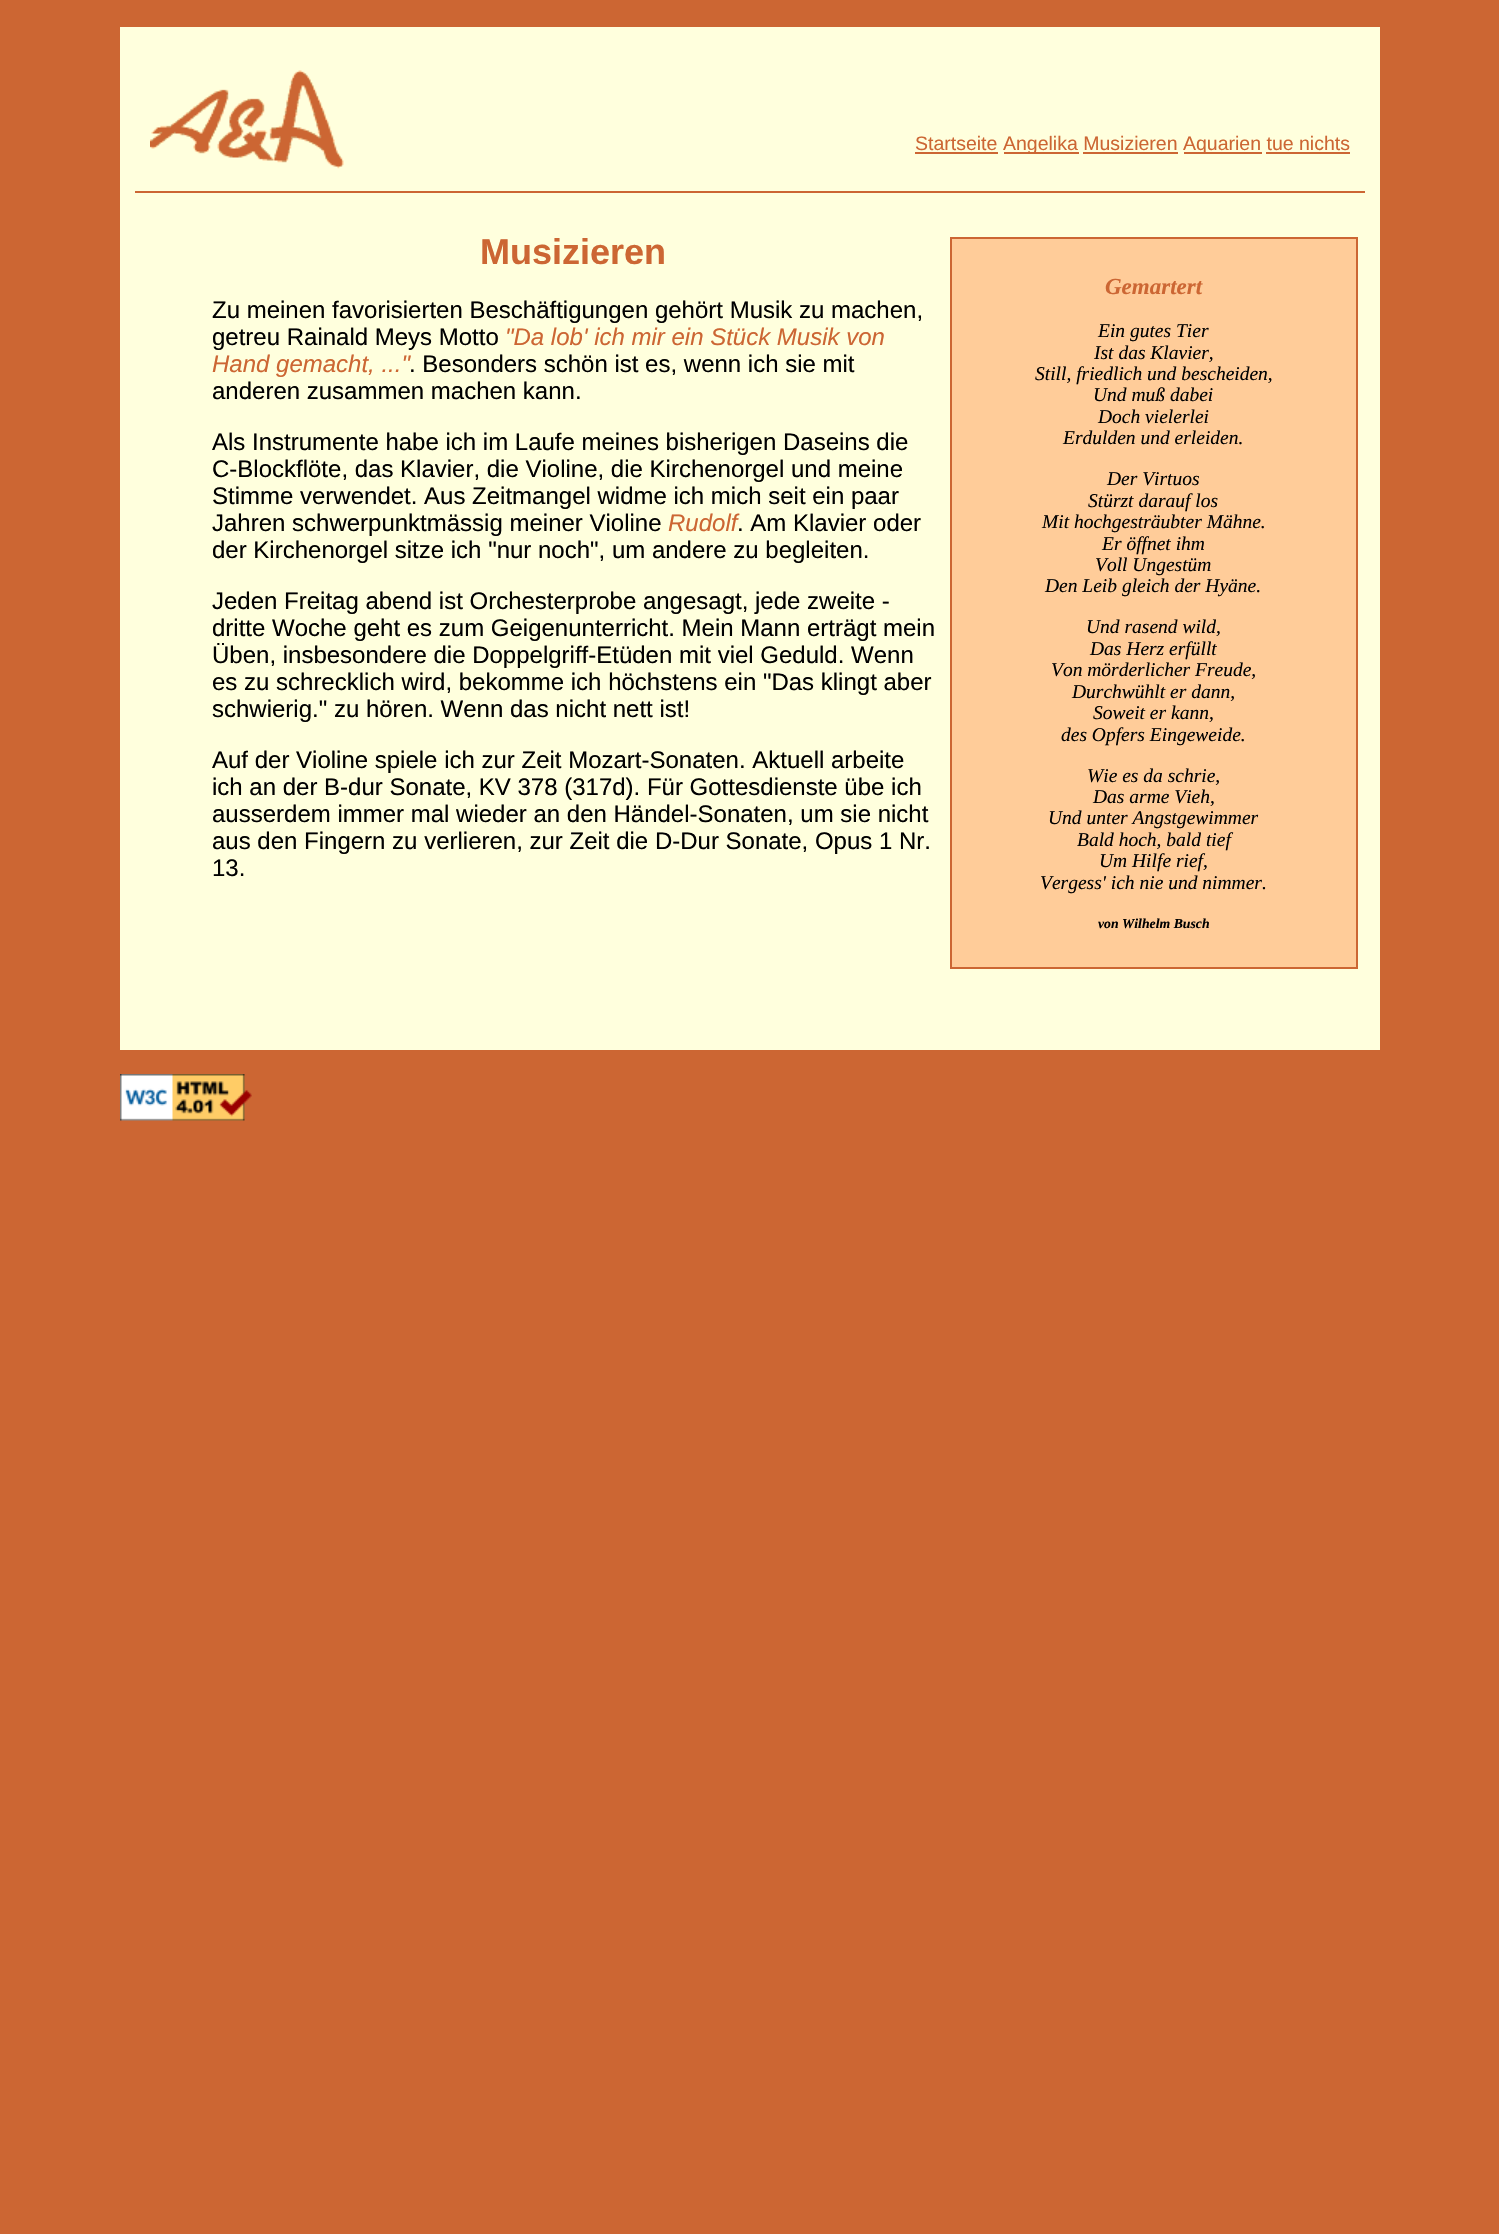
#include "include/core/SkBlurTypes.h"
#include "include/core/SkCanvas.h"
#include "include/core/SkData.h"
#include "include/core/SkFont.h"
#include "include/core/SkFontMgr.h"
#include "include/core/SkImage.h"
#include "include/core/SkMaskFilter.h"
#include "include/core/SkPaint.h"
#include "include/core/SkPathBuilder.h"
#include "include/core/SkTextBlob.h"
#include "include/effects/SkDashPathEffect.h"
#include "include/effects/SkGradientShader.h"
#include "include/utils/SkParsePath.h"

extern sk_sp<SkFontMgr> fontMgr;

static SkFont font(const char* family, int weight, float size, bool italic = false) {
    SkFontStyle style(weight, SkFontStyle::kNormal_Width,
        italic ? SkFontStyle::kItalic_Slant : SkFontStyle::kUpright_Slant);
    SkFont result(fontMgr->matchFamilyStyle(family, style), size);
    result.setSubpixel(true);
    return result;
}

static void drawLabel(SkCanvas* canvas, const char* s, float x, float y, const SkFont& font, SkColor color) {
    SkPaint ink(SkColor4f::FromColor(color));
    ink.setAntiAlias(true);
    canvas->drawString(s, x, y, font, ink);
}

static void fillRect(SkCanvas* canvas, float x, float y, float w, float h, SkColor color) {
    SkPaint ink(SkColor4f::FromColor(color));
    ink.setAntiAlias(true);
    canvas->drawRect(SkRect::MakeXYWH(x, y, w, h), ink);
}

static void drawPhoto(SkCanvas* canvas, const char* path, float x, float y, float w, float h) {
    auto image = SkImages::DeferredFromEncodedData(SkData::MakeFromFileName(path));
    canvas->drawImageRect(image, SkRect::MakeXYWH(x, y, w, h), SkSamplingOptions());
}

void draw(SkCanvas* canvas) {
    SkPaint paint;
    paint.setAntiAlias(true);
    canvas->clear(0xFFCC6633);
    fillRect(canvas, 120, 27, 1260, 1023, 0xFFFFFFDD);
    fillRect(canvas, 135, 191, 1230, 2, 0xFFCC6633);
    drawPhoto(canvas, "assets/img1.png", 150, 70, 194, 99);
    SkFont font1 = font("Liberation Sans", 400, 19.5f);
    drawLabel(canvas, "Startseite", 915, 150, font1, 0xFFCC6633);
    fillRect(canvas, 915, 152, 83, 2, 0xFFCC6633);
    fillRect(canvas, 1004, 152, 75, 2, 0xFFCC6633);
    drawLabel(canvas, "Angelika Musizieren", 1003, 150, font1, 0xFFCC6633);
    fillRect(canvas, 1184, 152, 78, 2, 0xFFCC6633);
    drawLabel(canvas, "Aquarien tue nichts", 1183, 150, font1, 0xFFCC6633);
    fillRect(canvas, 1083, 152, 95, 2, 0xFFCC6633);
    fillRect(canvas, 1266, 152, 84, 2, 0xFFCC6633);
    SkFont font2 = font("Liberation Sans", 700, 36);
    drawLabel(canvas, "Musizieren", 480, 264, font2, 0xFFCC6633);
    SkFont font3 = font("Liberation Sans", 400, 24);
    drawLabel(canvas, "Zu meinen favorisierten Beschäftigungen gehört Musik zu machen,", 212, 318, font3, 0xFF000000);
    drawLabel(canvas, "getreu Rainald Meys Motto", 212, 345, font3, 0xFF000000);
    SkFont font4 = font("Liberation Sans", 400, 24, true);
    drawLabel(canvas, "\"Da lob' ich mir ein Stück Musik von", 505, 345, font4, 0xFFCC6633);
    drawLabel(canvas, "Hand gemacht, ...\"", 212, 372, font4, 0xFFCC6633);
    drawLabel(canvas, ". Besonders schön ist es, wenn ich sie mit", 409, 372, font3, 0xFF000000);
    drawLabel(canvas, "anderen zusammen machen kann.", 212, 399, font3, 0xFF000000);
    drawLabel(canvas, "Als Instrumente habe ich im Laufe meines bisherigen Daseins die", 212, 450, font3, 0xFF000000);
    drawLabel(canvas, "C-Blockflöte, das Klavier, die Violine, die Kirchenorgel und meine", 212, 477, font3, 0xFF000000);
    drawLabel(canvas, "Stimme verwendet. Aus Zeitmangel widme ich mich seit ein paar", 212, 504, font3, 0xFF000000);
    drawLabel(canvas, "Jahren schwerpunktmässig meiner Violine", 212, 531, font3, 0xFF000000);
    drawLabel(canvas, "Rudolf", 668, 531, font4, 0xFFCC6633);
    drawLabel(canvas, ". Am Klavier oder", 737, 531, font3, 0xFF000000);
    drawLabel(canvas, "der Kirchenorgel sitze ich \"nur noch\", um andere zu begleiten.", 212, 558, font3, 0xFF000000);
    drawLabel(canvas, "Jeden Freitag abend ist Orchesterprobe angesagt, jede zweite -", 212, 609, font3, 0xFF000000);
    drawLabel(canvas, "dritte Woche geht es zum Geigenunterricht. Mein Mann erträgt mein", 212, 636, font3, 0xFF000000);
    drawLabel(canvas, "Üben, insbesondere die Doppelgriff-Etüden mit viel Geduld. Wenn", 212, 663, font3, 0xFF000000);
    drawLabel(canvas, "es zu schrecklich wird, bekomme ich höchstens ein \"Das klingt aber", 212, 690, font3, 0xFF000000);
    drawLabel(canvas, "schwierig.\" zu hören. Wenn das nicht nett ist!", 212, 717, font3, 0xFF000000);
    drawLabel(canvas, "Auf der Violine spiele ich zur Zeit Mozart-Sonaten. Aktuell arbeite", 212, 768, font3, 0xFF000000);
    drawLabel(canvas, "ich an der B-dur Sonate, KV 378 (317d). Für Gottesdienste übe ich", 212, 795, font3, 0xFF000000);
    drawLabel(canvas, "ausserdem immer mal wieder an den Händel-Sonaten, um sie nicht", 212, 822, font3, 0xFF000000);
    drawLabel(canvas, "aus den Fingern zu verlieren, zur Zeit die D-Dur Sonate, Opus 1 Nr.", 212, 849, font3, 0xFF000000);
    drawLabel(canvas, "13.", 212, 876, font3, 0xFF000000);
    paint.setColor(0xFFFFCC99);
    canvas->drawRect(SkRect::MakeXYWH(951, 238, 406, 730), paint);
    paint.setStroke(true);
    paint.setStrokeWidth(2);
    paint.setColor(0xFFCC6633);
    canvas->drawRect(SkRect::MakeXYWH(951, 238, 406, 730), paint);
    SkFont font5 = font("Liberation Serif", 700, 23, true);
    drawLabel(canvas, "Gemartert", 1105, 294, font5, 0xFFCC6633);
    SkFont font6 = font("Liberation Serif", 400, 19.5f, true);
    drawLabel(canvas, "Ein gutes Tier", 1098, 337, font6, 0xFF000000);
    drawLabel(canvas, "Ist das Klavier,", 1094, 359, font6, 0xFF000000);
    drawLabel(canvas, "Still, friedlich und bescheiden,", 1035, 380, font6, 0xFF000000);
    drawLabel(canvas, "Und muß dabei", 1093, 401, font6, 0xFF000000);
    drawLabel(canvas, "Doch vielerlei", 1098, 423, font6, 0xFF000000);
    drawLabel(canvas, "Erdulden und erleiden.", 1063, 444, font6, 0xFF000000);
    drawLabel(canvas, "Der Virtuos", 1107, 485, font6, 0xFF000000);
    drawLabel(canvas, "Stürzt darauf los", 1088, 507, font6, 0xFF000000);
    drawLabel(canvas, "Mit hochgesträubter Mähne.", 1042, 528, font6, 0xFF000000);
    drawLabel(canvas, "Er öffnet ihm", 1102, 550, font6, 0xFF000000);
    drawLabel(canvas, "Voll Ungestüm", 1095, 571, font6, 0xFF000000);
    drawLabel(canvas, "Den Leib gleich der Hyäne.", 1045, 592, font6, 0xFF000000);
    drawLabel(canvas, "Und rasend wild,", 1086, 633, font6, 0xFF000000);
    drawLabel(canvas, "Das Herz erfüllt", 1090, 655, font6, 0xFF000000);
    drawLabel(canvas, "Von mörderlicher Freude,", 1051, 676, font6, 0xFF000000);
    drawLabel(canvas, "Durchwühlt er dann,", 1072, 698, font6, 0xFF000000);
    drawLabel(canvas, "Soweit er kann,", 1093, 719, font6, 0xFF000000);
    drawLabel(canvas, "des Opfers Eingeweide.", 1061, 741, font6, 0xFF000000);
    drawLabel(canvas, "Wie es da schrie,", 1087, 782, font6, 0xFF000000);
    drawLabel(canvas, "Das arme Vieh,", 1093, 803, font6, 0xFF000000);
    drawLabel(canvas, "Und unter Angstgewimmer", 1048, 824, font6, 0xFF000000);
    drawLabel(canvas, "Bald hoch, bald tief", 1077, 846, font6, 0xFF000000);
    drawLabel(canvas, "Um Hilfe rief,", 1099, 867, font6, 0xFF000000);
    drawLabel(canvas, "Vergess' ich nie und nimmer.", 1040, 889, font6, 0xFF000000);
    SkFont font7 = font("Liberation Serif", 700, 13.75f, true);
    drawLabel(canvas, "von Wilhelm Busch", 1098, 928, font7, 0xFF000000);
    drawPhoto(canvas, "assets/img2.png", 120, 1074, 132, 47);
}
